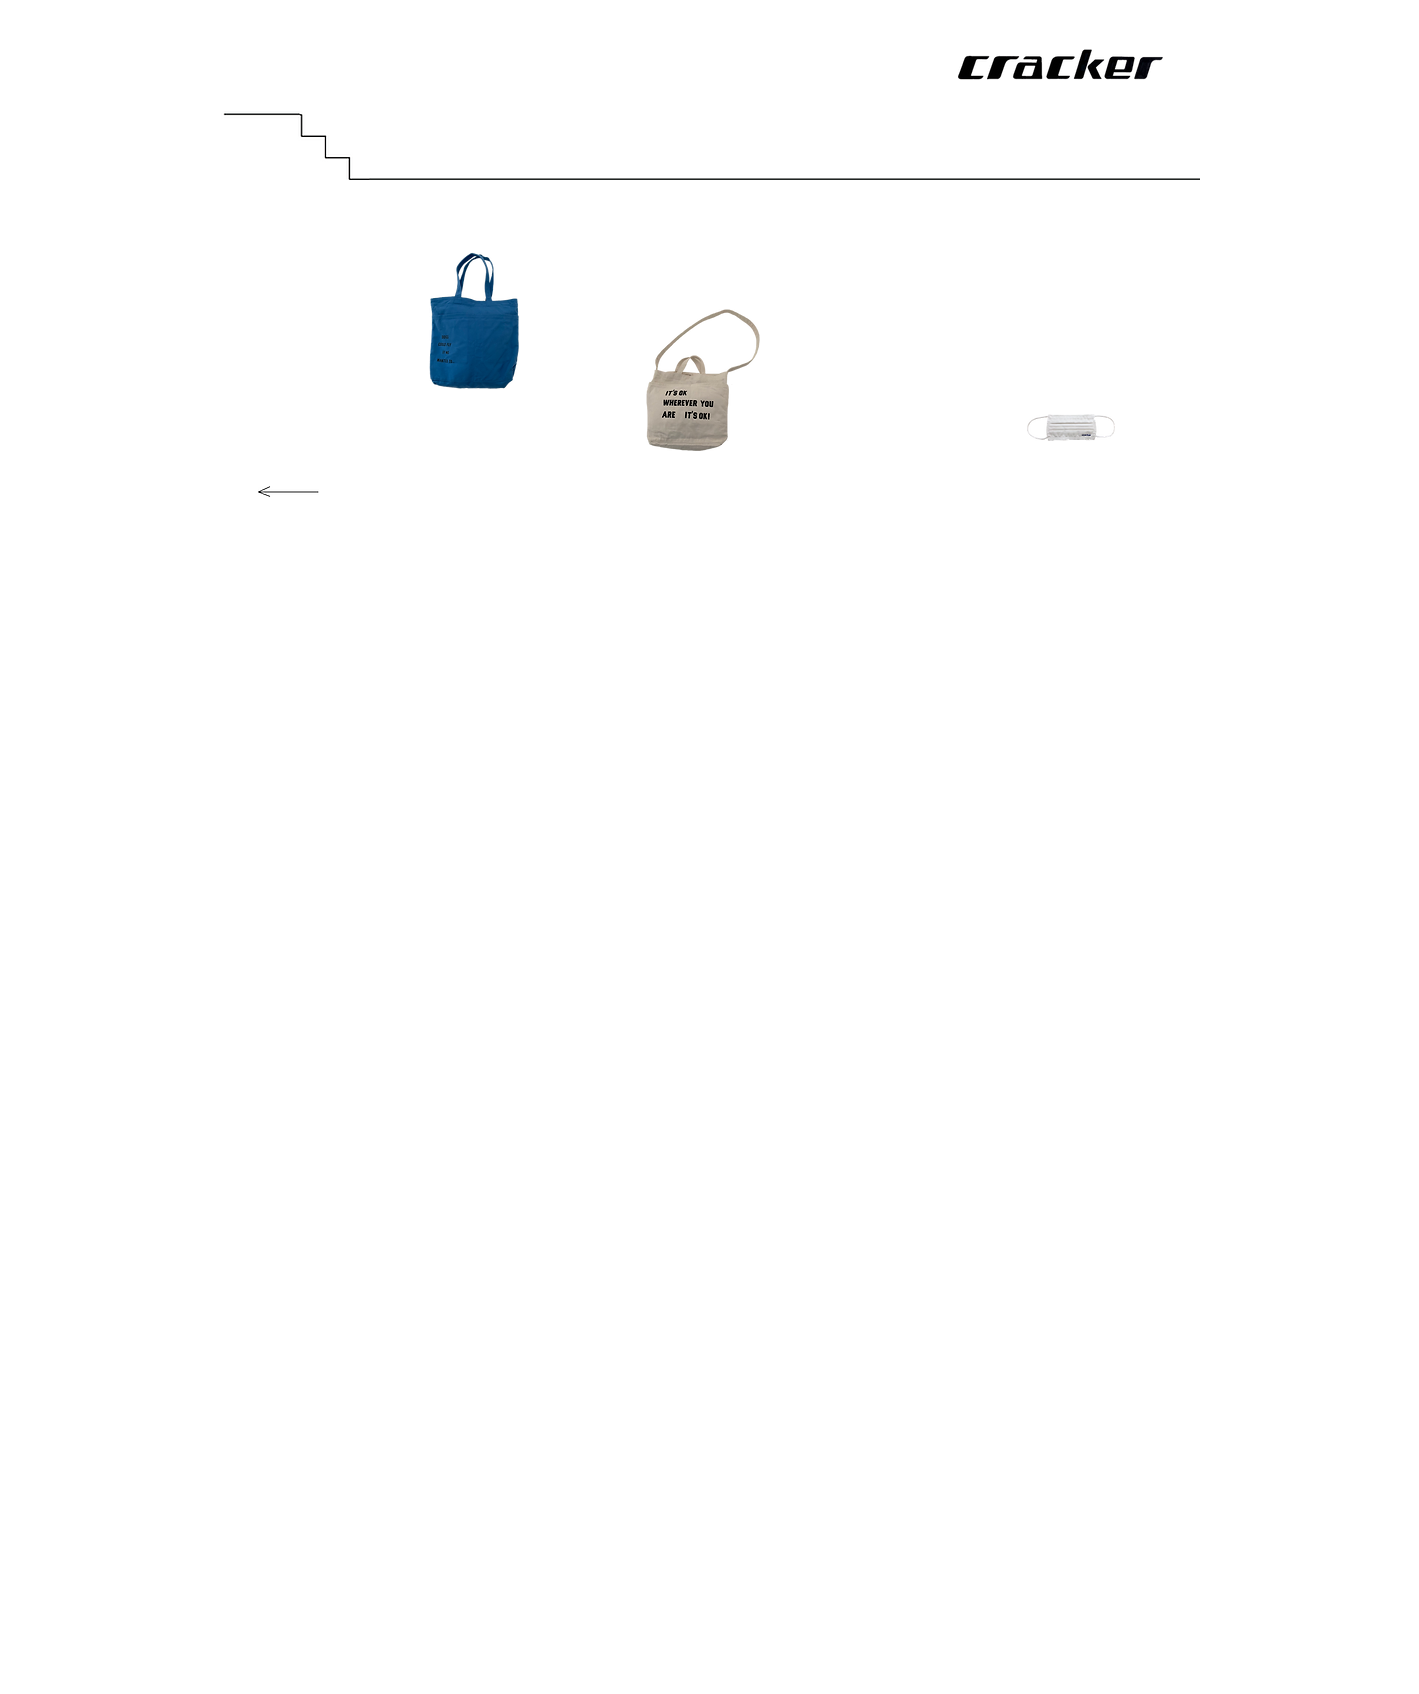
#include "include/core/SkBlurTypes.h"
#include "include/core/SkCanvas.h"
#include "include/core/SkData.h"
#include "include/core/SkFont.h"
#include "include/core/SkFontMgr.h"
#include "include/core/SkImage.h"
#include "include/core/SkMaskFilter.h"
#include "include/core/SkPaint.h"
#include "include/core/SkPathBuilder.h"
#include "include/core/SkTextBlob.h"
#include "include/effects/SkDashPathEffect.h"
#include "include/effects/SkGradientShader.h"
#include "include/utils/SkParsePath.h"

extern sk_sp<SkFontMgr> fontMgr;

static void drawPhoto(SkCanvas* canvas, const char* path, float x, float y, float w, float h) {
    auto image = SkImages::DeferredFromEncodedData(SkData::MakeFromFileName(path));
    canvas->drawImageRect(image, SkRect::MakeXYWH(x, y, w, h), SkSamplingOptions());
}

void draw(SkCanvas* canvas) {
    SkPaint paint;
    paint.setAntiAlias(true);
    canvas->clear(0xFFFFFFFF);
    drawPhoto(canvas, "assets/img1.png", 958, 49, 205, 31);
    drawPhoto(canvas, "assets/img2.png", 221, 111, 979, 69);
    drawPhoto(canvas, "assets/img3.png", 429, 252, 90, 137);
    drawPhoto(canvas, "assets/img4.png", 646, 309, 114, 142);
    drawPhoto(canvas, "assets/img5.png", 1027, 414, 88, 27);
    drawPhoto(canvas, "assets/img6.png", 258, 486, 61, 11);
}
